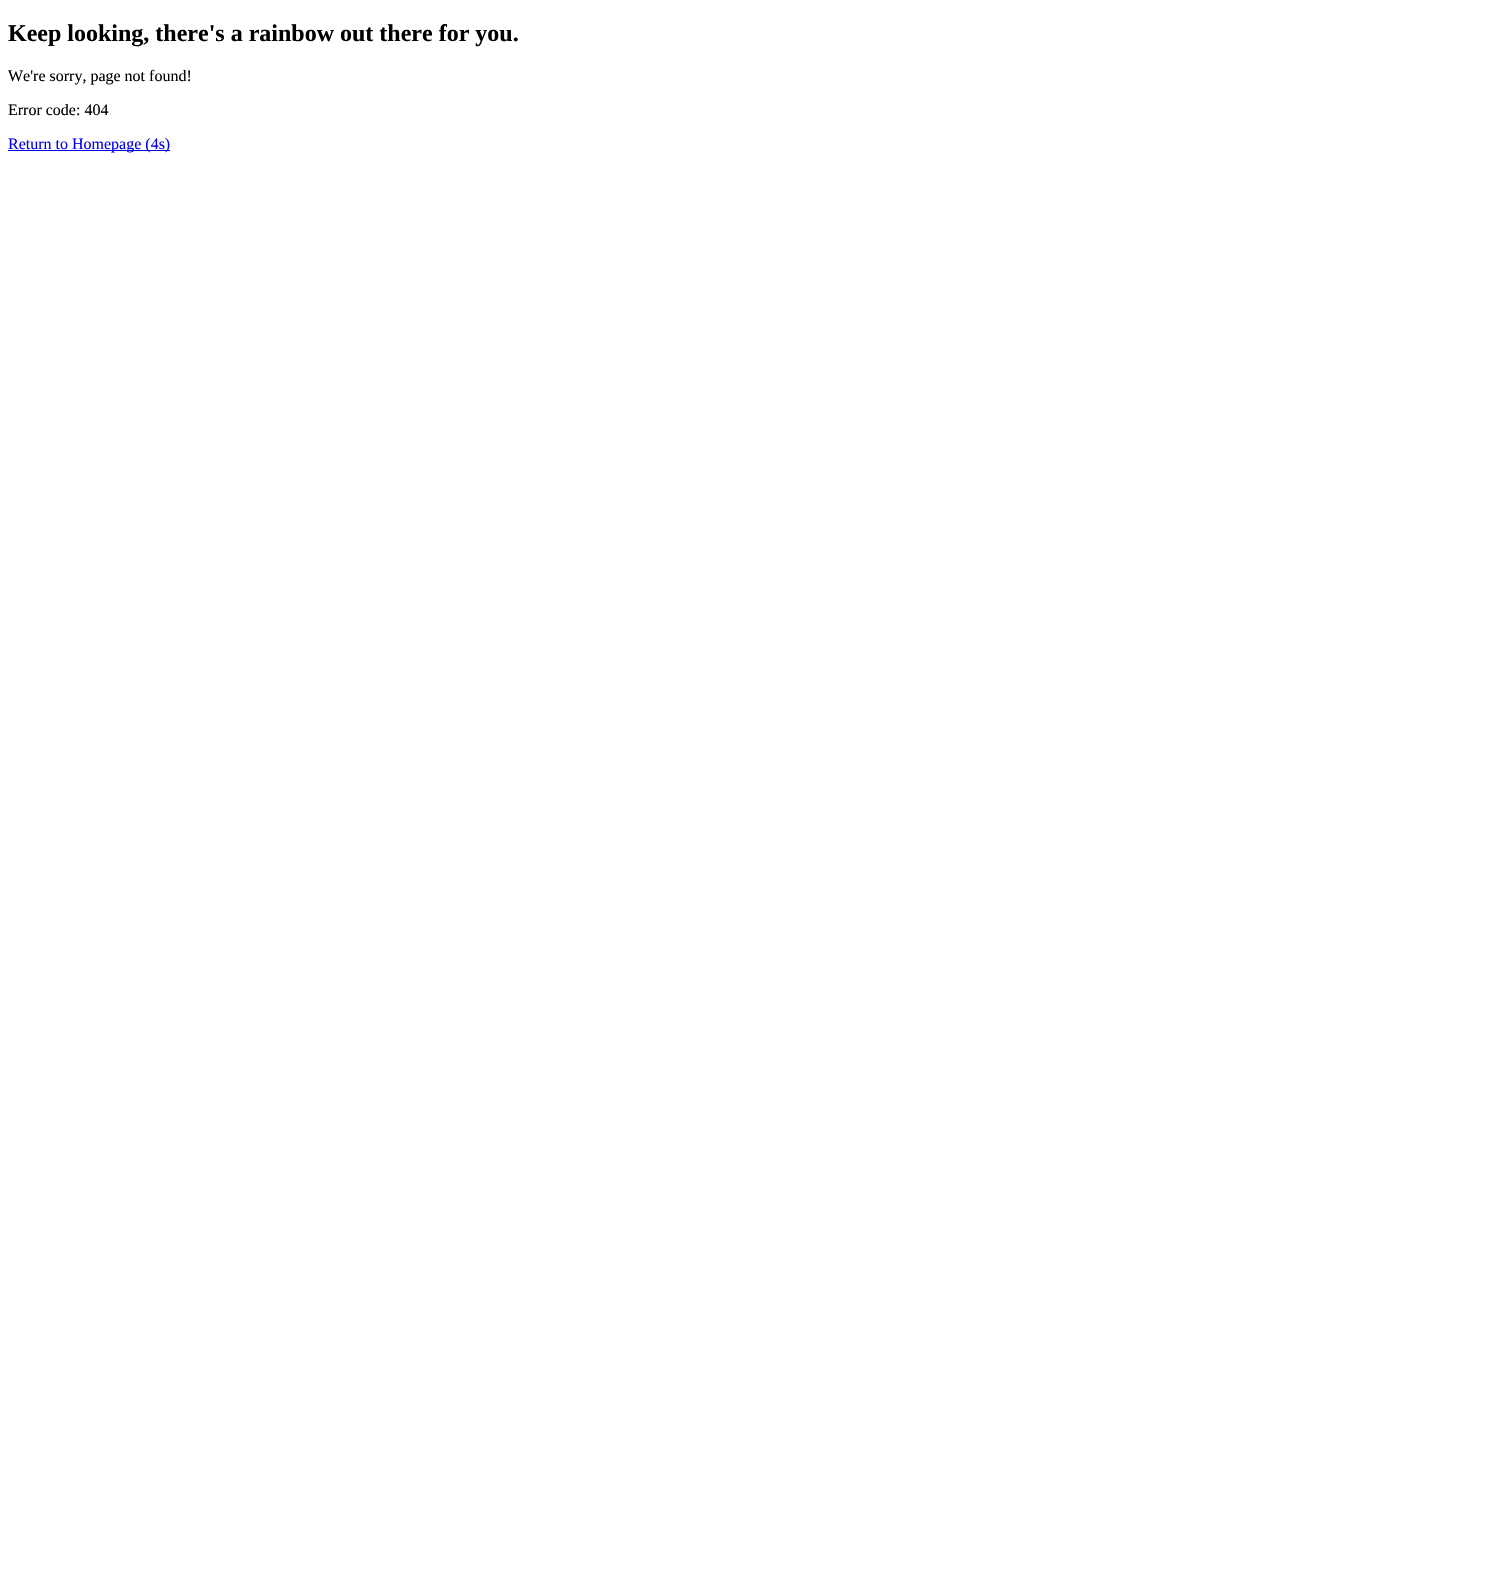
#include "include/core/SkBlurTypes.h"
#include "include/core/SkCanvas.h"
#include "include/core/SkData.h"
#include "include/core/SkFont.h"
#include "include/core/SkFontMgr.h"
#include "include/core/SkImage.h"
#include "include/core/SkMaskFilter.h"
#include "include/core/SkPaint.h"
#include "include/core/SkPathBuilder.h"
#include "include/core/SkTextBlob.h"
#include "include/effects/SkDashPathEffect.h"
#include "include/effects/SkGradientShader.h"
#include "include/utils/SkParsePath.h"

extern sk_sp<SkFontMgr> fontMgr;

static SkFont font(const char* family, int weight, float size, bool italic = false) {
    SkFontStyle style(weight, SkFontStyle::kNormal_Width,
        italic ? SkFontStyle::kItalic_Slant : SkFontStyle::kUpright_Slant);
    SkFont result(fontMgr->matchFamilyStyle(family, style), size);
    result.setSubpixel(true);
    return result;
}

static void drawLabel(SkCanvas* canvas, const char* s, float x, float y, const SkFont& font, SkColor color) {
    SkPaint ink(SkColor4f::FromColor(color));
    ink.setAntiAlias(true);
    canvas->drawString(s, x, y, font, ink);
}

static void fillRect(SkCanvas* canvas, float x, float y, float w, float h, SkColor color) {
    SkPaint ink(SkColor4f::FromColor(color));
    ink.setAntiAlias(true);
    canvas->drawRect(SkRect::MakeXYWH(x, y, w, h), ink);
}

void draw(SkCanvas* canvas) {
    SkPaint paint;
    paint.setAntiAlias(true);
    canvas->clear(0xFFFFFFFF);
    SkFont font1 = font("Liberation Serif", 700, 24);
    drawLabel(canvas, "Keep looking, there's a rainbow out there for you.", 8, 41, font1, 0xFF000000);
    SkFont font2 = font("Liberation Serif", 400, 16);
    drawLabel(canvas, "We're sorry, page not found!", 8, 81, font2, 0xFF000000);
    drawLabel(canvas, "Error code: 404", 8, 115, font2, 0xFF000000);
    fillRect(canvas, 8, 150, 162, 1, 0xFF0000EE);
    drawLabel(canvas, "Return to Homepage (4s)", 8, 149, font2, 0xFF0000EE);
}
